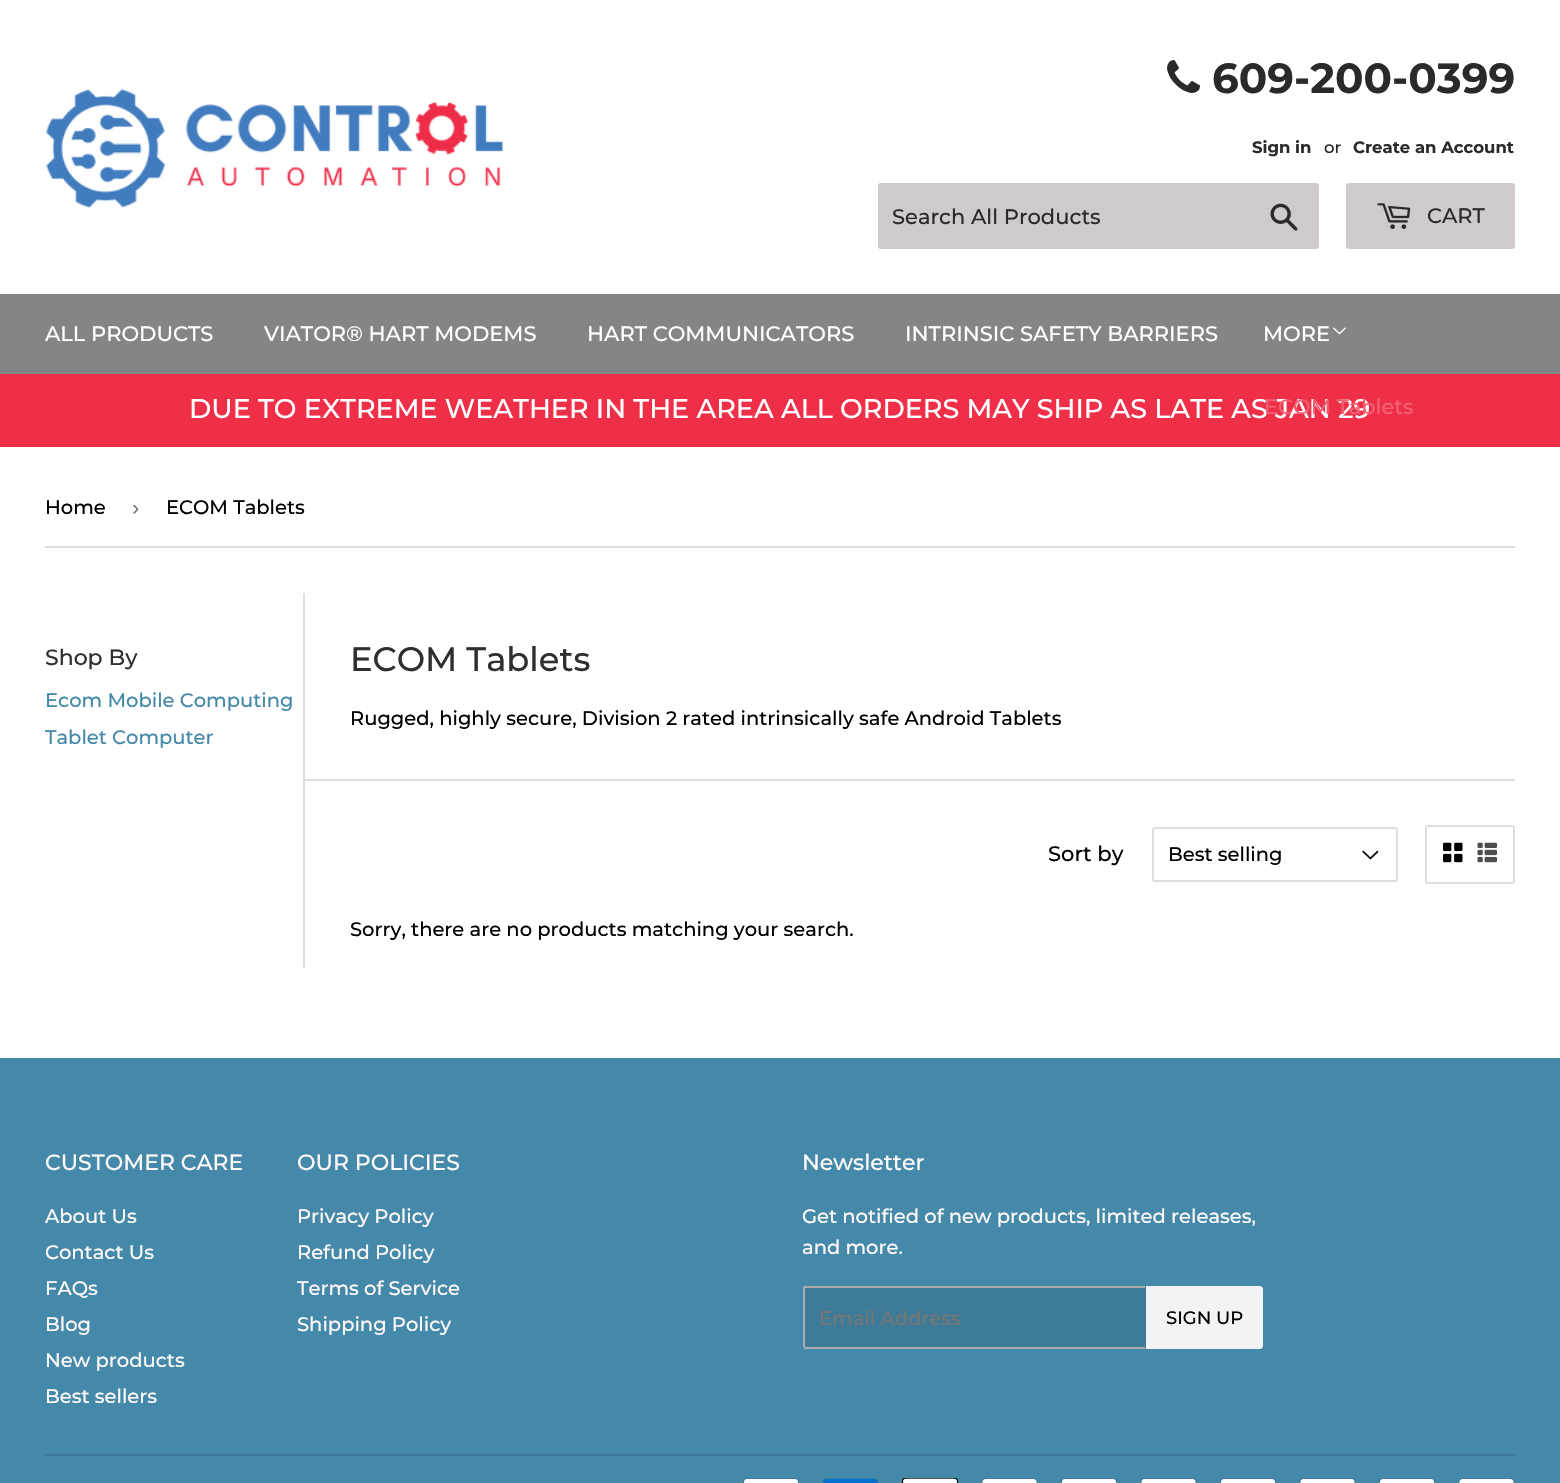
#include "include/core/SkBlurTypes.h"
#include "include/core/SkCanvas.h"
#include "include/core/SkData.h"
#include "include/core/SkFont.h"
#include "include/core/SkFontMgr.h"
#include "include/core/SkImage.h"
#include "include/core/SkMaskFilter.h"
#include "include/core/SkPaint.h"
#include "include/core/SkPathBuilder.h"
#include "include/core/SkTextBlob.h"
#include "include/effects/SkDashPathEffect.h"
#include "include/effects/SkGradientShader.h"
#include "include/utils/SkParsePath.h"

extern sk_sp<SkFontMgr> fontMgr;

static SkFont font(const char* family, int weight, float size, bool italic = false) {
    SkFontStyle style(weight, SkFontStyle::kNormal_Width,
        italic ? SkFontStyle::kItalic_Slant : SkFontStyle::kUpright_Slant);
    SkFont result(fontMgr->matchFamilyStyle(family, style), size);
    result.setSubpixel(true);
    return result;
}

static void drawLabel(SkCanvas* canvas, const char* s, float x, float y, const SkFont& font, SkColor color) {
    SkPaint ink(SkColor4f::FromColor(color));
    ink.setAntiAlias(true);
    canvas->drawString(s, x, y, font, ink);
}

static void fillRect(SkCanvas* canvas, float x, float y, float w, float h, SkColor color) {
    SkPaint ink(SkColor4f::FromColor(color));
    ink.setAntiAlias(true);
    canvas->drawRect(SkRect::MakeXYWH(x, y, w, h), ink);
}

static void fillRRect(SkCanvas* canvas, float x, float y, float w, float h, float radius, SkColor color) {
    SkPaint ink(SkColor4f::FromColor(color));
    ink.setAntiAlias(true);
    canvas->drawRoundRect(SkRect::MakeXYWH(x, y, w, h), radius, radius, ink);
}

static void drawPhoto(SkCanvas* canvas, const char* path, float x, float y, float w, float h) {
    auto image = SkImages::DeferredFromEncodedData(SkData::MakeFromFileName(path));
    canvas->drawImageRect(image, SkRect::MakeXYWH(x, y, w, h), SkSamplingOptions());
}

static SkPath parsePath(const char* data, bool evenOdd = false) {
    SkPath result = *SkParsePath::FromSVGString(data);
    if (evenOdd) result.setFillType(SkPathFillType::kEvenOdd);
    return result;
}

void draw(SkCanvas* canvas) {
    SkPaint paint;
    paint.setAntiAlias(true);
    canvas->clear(0xFFFFFFFF);
    drawPhoto(canvas, "assets/img1.png", 46, 88, 457, 120);
    drawPhoto(canvas, "assets/img2.png", 1167, 60, 33, 33);
    SkFont font1 = font("Montserrat", 700, 42);
    drawLabel(canvas, "609-200-0399", 1212, 93, font1, 0xFF2B2929);
    SkFont font2 = font("Montserrat", 700, 16.5f);
    drawLabel(canvas, "Sign in", 1252, 153, font2, 0xFF2B2929);
    SkFont font3 = font("Montserrat", 500, 16.5f);
    drawLabel(canvas, "or", 1324, 153, font3, 0xFF2B2929);
    drawLabel(canvas, "Create an Account", 1353, 153, font2, 0xFF2B2929);
    fillRRect(canvas, 878, 183, 441, 66, 3, 0xFFD0CACA);
    SkFont font4 = font("Montserrat", 500, 21);
    drawLabel(canvas, "Search All Products", 892, 224, font4, 0xFF2B2929);
    drawPhoto(canvas, "assets/img3.png", 1270, 203, 28, 28);
    fillRRect(canvas, 1346, 183, 169, 66, 3, 0xFFD0CACA);
    drawPhoto(canvas, "assets/img4.png", 1377, 203, 34, 26);
    drawLabel(canvas, "CART", 1427, 223, font4, 0xFF2B2929);
    fillRect(canvas, 0, 294, 1560, 80, 0xFF858585);
    drawLabel(canvas, "ALL PRODUCTS", 45, 341, font4, 0xFFFFFFFF);
    drawLabel(canvas, "VIATOR® HART MODEMS", 264, 341, font4, 0xFFFFFFFF);
    drawLabel(canvas, "HART COMMUNICATORS", 587, 341, font4, 0xFFFFFFFF);
    drawLabel(canvas, "INTRINSIC SAFETY BARRIERS", 905, 341, font4, 0xFFFFFFFF);
    drawLabel(canvas, "MORE", 1263, 341, font4, 0xFFFFFFFF);
    drawPhoto(canvas, "assets/img5.png", 1333, 327, 13, 8);
    fillRect(canvas, 0, 374, 1560, 73, 0xFFEE2F47);
    SkFont font5 = font("Montserrat", 500, 27);
    drawLabel(canvas, "DUE TO EXTREME WEATHER IN THE AREA ALL ORDERS MAY SHIP AS LATE AS JAN 29", 189, 418, font5, 0xFFFFFFFF);
    drawLabel(canvas, "ECOM Tablets", 1264, 414, font4, 0xFFF26173);
    fillRect(canvas, 45, 546, 1470, 2, 0xFFDEDEDE);
    SkFont font6 = font("Montserrat", 500, 19.5f);
    drawLabel(canvas, "Home", 45, 514, font6, 0xFF000000);
    SkFont font7 = font("Liberation Sans", 400, 22);
    drawLabel(canvas, "›", 132, 515, font7, 0xFF767676);
    drawLabel(canvas, "ECOM Tablets", 166, 514, font6, 0xFF000000);
    SkFont font8 = font("Montserrat", 500, 22);
    drawLabel(canvas, "Shop By", 45, 665, font8, 0xFF2F2F2F);
    drawLabel(canvas, "Ecom Mobile Computing", 45, 707, font6, 0xFF4489A9);
    drawLabel(canvas, "Tablet Computer", 45, 744, font6, 0xFF4489A9);
    fillRect(canvas, 303, 593, 2, 375, 0xFFDEDEDE);
    SkFont font9 = font("Montserrat", 500, 33.75f);
    drawLabel(canvas, "ECOM Tablets", 350, 671, font9, 0xFF2F2F2F);
    drawLabel(canvas, "Rugged, highly secure, Division 2 rated intrinsically safe Android Tablets", 350, 725, font6, 0xFF000000);
    fillRect(canvas, 305, 779, 1210, 2, 0xFFDEDEDE);
    drawLabel(canvas, "Sort by", 1048, 861, font4, 0xFF000000);
    drawPhoto(canvas, "assets/img6.png", 1362, 850, 17, 10);
    paint.setStroke(true);
    paint.setStrokeWidth(2);
    paint.setColor(0xFFDEDEDE);
    canvas->drawRoundRect(SkRect::MakeXYWH(1153, 828, 244, 53), 2, 2, paint);
    drawLabel(canvas, "Best selling", 1168, 861, font6, 0xFF000000);
    canvas->drawRoundRect(SkRect::MakeXYWH(1426, 826, 88, 57), 2, 2, paint);
    drawPhoto(canvas, "assets/img7.png", 1443, 842, 20, 21);
    drawPhoto(canvas, "assets/img8.png", 1477, 842, 20, 21);
    drawLabel(canvas, "Sorry, there are no products matching your search.", 350, 936, font6, 0xFF000000);
    fillRect(canvas, 0, 1058, 1560, 425, 0xFF4489A9);
    drawLabel(canvas, "CUSTOMER CARE", 45, 1170, font8, 0xFFFFF9F9);
    drawLabel(canvas, "About Us", 45, 1223, font6, 0xFFFFF9F9);
    drawLabel(canvas, "Contact Us", 45, 1259, font6, 0xFFFFF9F9);
    drawLabel(canvas, "FAQs", 45, 1295, font6, 0xFFFFF9F9);
    drawLabel(canvas, "Blog", 45, 1331, font6, 0xFFFFF9F9);
    drawLabel(canvas, "New products", 45, 1367, font6, 0xFFFFF9F9);
    drawLabel(canvas, "Best sellers", 45, 1403, font6, 0xFFFFF9F9);
    drawLabel(canvas, "OUR POLICIES", 297, 1170, font8, 0xFFFFF9F9);
    drawLabel(canvas, "Privacy Policy", 297, 1223, font6, 0xFFFFF9F9);
    drawLabel(canvas, "Refund Policy", 297, 1259, font6, 0xFFFFF9F9);
    drawLabel(canvas, "Terms of Service", 297, 1295, font6, 0xFFFFF9F9);
    drawLabel(canvas, "Shipping Policy", 297, 1331, font6, 0xFFFFF9F9);
    drawLabel(canvas, "Newsletter", 802, 1170, font8, 0xFFFFF9F9);
    drawLabel(canvas, "Get notified of new products, limited releases,", 802, 1223, font6, 0xFFFFF9F9);
    drawLabel(canvas, "and more.", 802, 1254, font6, 0xFFFFF9F9);
    fillRRect(canvas, 803, 1286, 343, 63, 3, 0xFF3D7B98);
    fillRect(canvas, 804, 1286, 341, 2, 0xFFABABAB);
    fillRect(canvas, 804, 1347, 341, 2, 0xFFABABAB);
    fillRect(canvas, 803, 1287, 2, 60, 0xFFABABAB);
    drawLabel(canvas, "Email Address", 819, 1325, font6, 0xFF767676);
    paint.setStroke(false);
    paint.setColor(0xFFF3F3F3);
    canvas->drawPath(parsePath("M1146 1286H1260C1261.5 1286 1263 1287.5 1263 1289V1346C1263 1347.5 1261.5 1349 1260 1349H1146Z"), paint);
    SkFont font10 = font("Montserrat", 500, 18);
    drawLabel(canvas, "SIGN UP", 1166, 1324, font10, 0xFF000000);
    fillRect(canvas, 45, 1454, 1470, 2, 0xFF3D7A97);
    drawPhoto(canvas, "assets/img9.png", 743, 1478, 57, 5);
    drawPhoto(canvas, "assets/img10.png", 822, 1478, 57, 5);
    drawPhoto(canvas, "assets/img11.png", 902, 1478, 57, 5);
    drawPhoto(canvas, "assets/img12.png", 981, 1478, 57, 5);
    drawPhoto(canvas, "assets/img9.png", 1061, 1478, 57, 5);
    drawPhoto(canvas, "assets/img12.png", 1140, 1478, 57, 5);
    drawPhoto(canvas, "assets/img9.png", 1220, 1478, 57, 5);
    drawPhoto(canvas, "assets/img12.png", 1299, 1478, 57, 5);
    drawPhoto(canvas, "assets/img9.png", 1379, 1478, 57, 5);
    drawPhoto(canvas, "assets/img12.png", 1458, 1478, 57, 5);
}
